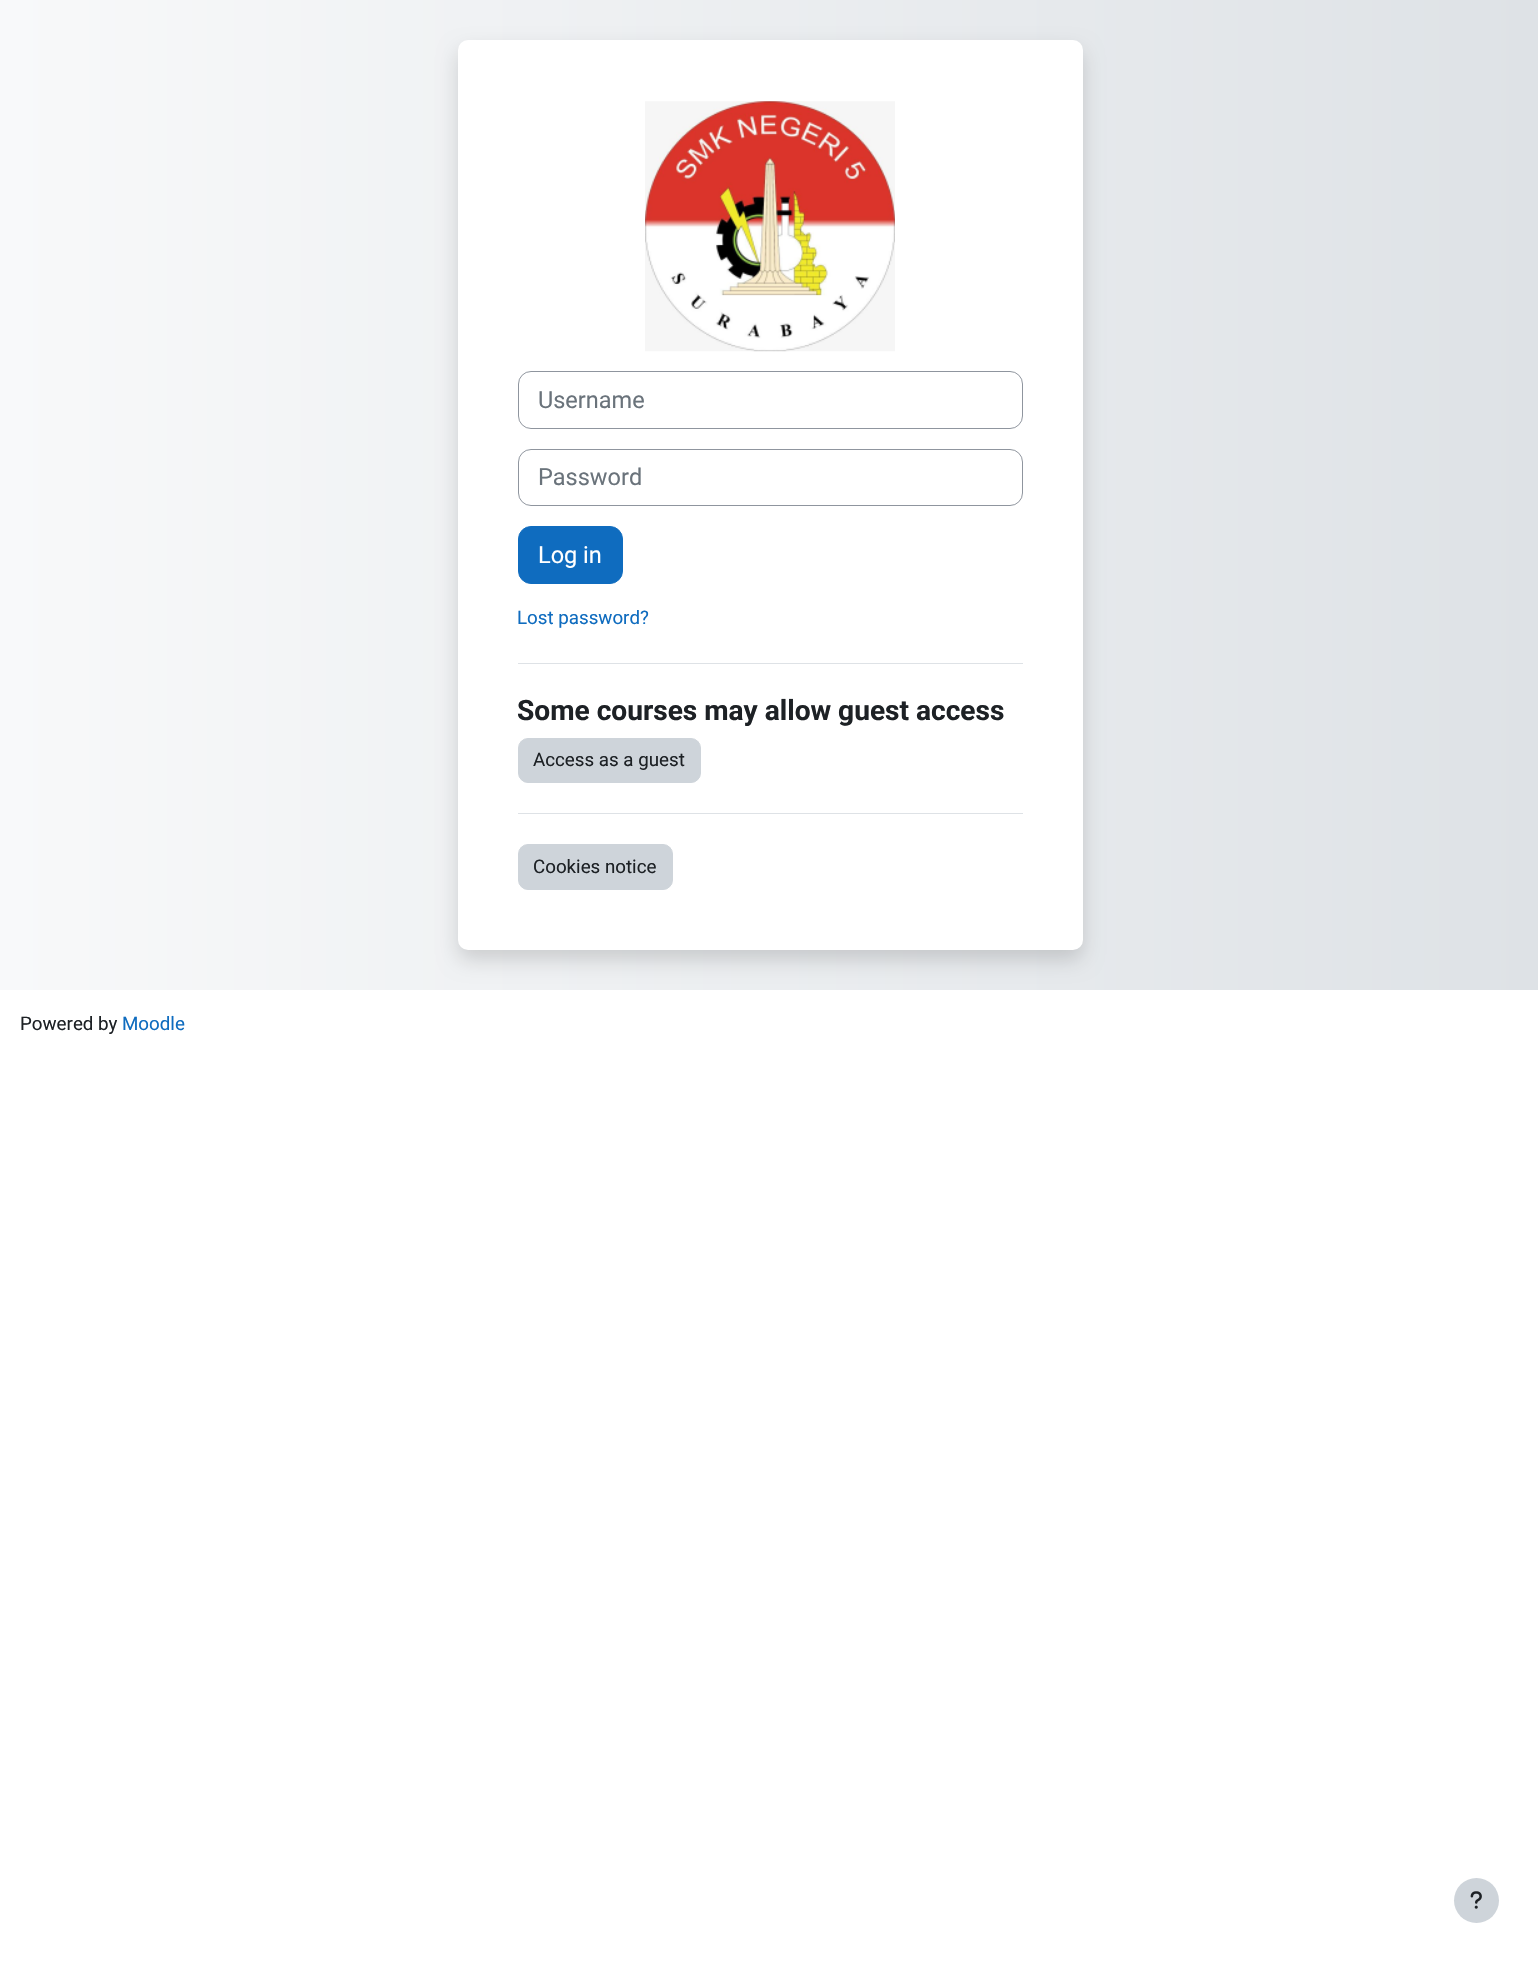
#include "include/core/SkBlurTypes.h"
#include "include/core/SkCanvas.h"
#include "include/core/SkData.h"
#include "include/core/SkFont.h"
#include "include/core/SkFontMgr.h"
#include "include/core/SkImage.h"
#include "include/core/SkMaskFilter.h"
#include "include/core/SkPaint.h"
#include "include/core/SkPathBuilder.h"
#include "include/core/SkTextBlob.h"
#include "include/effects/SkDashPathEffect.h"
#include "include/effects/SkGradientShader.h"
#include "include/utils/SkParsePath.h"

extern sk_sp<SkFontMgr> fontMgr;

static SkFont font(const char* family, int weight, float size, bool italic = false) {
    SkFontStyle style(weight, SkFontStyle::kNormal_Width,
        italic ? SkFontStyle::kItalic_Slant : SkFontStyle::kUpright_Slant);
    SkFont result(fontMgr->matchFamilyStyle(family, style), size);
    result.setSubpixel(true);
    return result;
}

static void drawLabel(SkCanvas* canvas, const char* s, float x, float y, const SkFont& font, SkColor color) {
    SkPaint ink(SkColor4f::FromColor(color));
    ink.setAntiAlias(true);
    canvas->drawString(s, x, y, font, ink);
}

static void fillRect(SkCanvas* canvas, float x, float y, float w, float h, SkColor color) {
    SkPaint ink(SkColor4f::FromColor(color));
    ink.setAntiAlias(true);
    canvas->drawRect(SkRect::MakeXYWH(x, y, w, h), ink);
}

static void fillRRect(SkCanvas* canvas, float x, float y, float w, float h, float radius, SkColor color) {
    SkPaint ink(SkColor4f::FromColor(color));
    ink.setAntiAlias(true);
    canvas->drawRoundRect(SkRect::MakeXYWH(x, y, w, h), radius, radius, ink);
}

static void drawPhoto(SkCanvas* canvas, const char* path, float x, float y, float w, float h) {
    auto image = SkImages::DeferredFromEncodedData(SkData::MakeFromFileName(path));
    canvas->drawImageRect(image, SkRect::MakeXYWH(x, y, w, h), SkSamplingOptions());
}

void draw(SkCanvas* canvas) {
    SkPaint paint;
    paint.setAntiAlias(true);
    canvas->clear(0xFFFFFFFF);
    {
        const SkColor colors[] = {0xFFF8F9FA, 0xFFDEE2E6};
        const float stops[] = {0, 1};
        const SkPoint ends[] = {{0, 495}, {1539, 495}};
        paint.setShader(SkGradientShader::MakeLinear(ends, colors, stops, 2, SkTileMode::kClamp));
        paint.setAlpha(255);
    }
    canvas->drawRect(SkRect::MakeXYWH(0, 0, 1538, 990), paint);
    paint.setShader(nullptr);
    paint.setColor(0x26000000);
    paint.setMaskFilter(SkMaskFilter::MakeBlur(kNormal_SkBlurStyle, 10));
    canvas->drawRoundRect(SkRect::MakeXYWH(458, 50, 625, 910), 10, 10, paint);
    paint.setMaskFilter(nullptr);
    fillRRect(canvas, 458, 40, 625, 910, 10, 0xFFFFFFFF);
    drawPhoto(canvas, "assets/img1.png", 645, 101, 250, 251);
    paint.setStroke(true);
    paint.setStrokeWidth(1);
    paint.setColor(0xFF8F959E);
    canvas->drawRoundRect(SkRect::MakeXYWH(518.5f, 371.5f, 504, 57), 12.5f, 12.5f, paint);
    SkFont font1 = font("Roboto", 400, 23.5f);
    drawLabel(canvas, "Username", 538, 408, font1, 0xFF6A737B);
    canvas->drawRoundRect(SkRect::MakeXYWH(518.5f, 449.5f, 504, 56), 12.5f, 12.5f, paint);
    drawLabel(canvas, "Password", 538, 485, font1, 0xFF6A737B);
    paint.setStroke(false);
    paint.setColor(0xFF0F6CBF);
    canvas->drawRoundRect(SkRect::MakeXYWH(518.5f, 526.5f, 104, 57), 12.5f, 12.5f, paint);
    paint.setStroke(true);
    canvas->drawRoundRect(SkRect::MakeXYWH(518.5f, 526.5f, 104, 57), 12.5f, 12.5f, paint);
    drawLabel(canvas, "Log in", 538, 563, font1, 0xFFFFFFFF);
    SkFont font2 = font("Roboto", 400, 18.75f);
    drawLabel(canvas, "Lost password?", 517, 624, font2, 0xFF0F6CBF);
    fillRect(canvas, 518, 663, 505, 1, 0xFFDEE2E6);
    SkFont font3 = font("Roboto", 700, 28.1f);
    drawLabel(canvas, "Some courses may allow guest access", 517, 720, font3, 0xFF1D2125);
    paint.setStroke(false);
    paint.setColor(0xFFCED4DA);
    canvas->drawRoundRect(SkRect::MakeXYWH(518.5f, 738.5f, 182, 44), 9.5f, 9.5f, paint);
    paint.setStroke(true);
    canvas->drawRoundRect(SkRect::MakeXYWH(518.5f, 738.5f, 182, 44), 9.5f, 9.5f, paint);
    drawLabel(canvas, "Access as a guest", 533, 766, font2, 0xFF1D2125);
    fillRect(canvas, 518, 813, 505, 1, 0xFFDEE2E6);
    paint.setStroke(false);
    canvas->drawRoundRect(SkRect::MakeXYWH(518.5f, 844.5f, 154, 45), 9.5f, 9.5f, paint);
    paint.setStroke(true);
    canvas->drawRoundRect(SkRect::MakeXYWH(518.5f, 844.5f, 154, 45), 9.5f, 9.5f, paint);
    drawLabel(canvas, "Cookies notice", 533, 873, font2, 0xFF1D2125);
    drawLabel(canvas, "Powered by", 20, 1030, font2, 0xFF1D2125);
    drawLabel(canvas, "Moodle", 122, 1030, font2, 0xFF0F6CBF);
    paint.setStroke(false);
    canvas->drawCircle(1476.5f, 1900.5f, 22.5f, paint);
    drawPhoto(canvas, "assets/img2.png", 1470, 1891, 12, 18);
}
